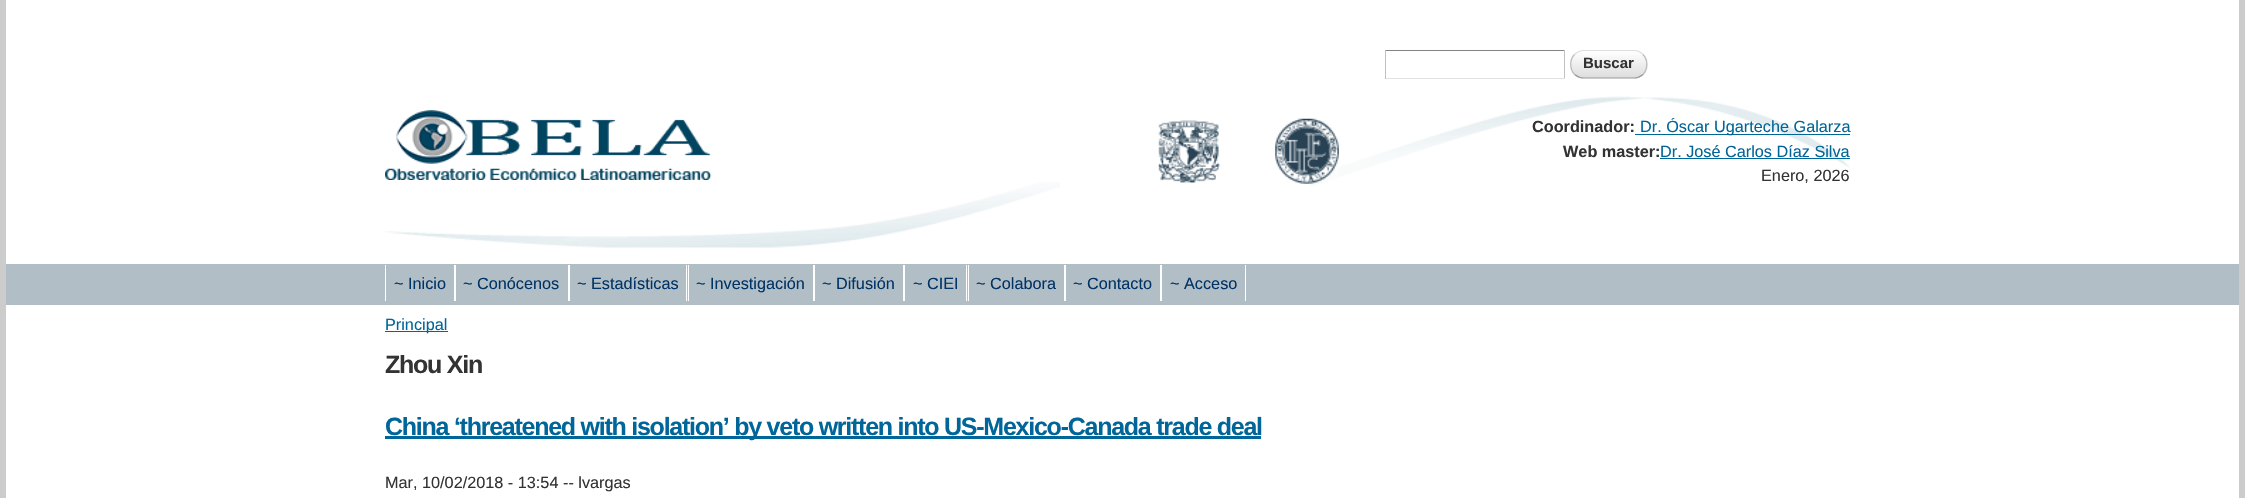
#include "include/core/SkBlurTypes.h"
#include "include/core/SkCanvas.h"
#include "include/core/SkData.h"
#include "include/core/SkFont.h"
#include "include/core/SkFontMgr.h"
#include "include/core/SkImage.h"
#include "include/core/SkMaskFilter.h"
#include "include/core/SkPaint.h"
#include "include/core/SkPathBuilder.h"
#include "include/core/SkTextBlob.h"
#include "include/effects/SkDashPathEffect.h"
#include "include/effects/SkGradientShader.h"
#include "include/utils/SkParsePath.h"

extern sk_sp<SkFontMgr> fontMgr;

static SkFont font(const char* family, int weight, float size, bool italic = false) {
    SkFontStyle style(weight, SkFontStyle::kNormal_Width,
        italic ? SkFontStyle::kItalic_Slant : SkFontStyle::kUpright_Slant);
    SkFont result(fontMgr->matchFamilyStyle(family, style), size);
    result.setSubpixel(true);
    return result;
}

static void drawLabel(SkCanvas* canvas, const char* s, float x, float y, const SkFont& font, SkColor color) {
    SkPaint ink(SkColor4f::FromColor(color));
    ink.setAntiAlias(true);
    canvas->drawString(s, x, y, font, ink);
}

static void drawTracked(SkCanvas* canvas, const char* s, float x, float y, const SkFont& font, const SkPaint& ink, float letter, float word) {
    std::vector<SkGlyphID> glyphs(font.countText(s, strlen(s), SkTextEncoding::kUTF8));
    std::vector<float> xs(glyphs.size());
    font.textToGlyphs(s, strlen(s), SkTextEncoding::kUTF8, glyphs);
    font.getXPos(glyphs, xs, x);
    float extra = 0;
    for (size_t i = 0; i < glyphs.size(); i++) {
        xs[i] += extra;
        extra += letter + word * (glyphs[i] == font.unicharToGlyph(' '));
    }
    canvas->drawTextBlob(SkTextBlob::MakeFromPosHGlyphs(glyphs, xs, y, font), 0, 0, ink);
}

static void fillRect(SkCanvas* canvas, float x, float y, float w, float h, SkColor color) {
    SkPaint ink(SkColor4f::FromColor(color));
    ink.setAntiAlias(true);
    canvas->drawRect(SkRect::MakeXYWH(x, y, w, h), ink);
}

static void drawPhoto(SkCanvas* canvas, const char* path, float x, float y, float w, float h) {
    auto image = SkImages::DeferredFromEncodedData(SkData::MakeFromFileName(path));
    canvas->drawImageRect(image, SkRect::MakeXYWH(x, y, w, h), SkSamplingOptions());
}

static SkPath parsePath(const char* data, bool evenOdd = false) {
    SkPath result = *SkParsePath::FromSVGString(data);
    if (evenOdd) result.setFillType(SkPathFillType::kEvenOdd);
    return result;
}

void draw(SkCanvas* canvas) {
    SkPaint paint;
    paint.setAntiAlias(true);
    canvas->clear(0xFFCCCCCC);
    fillRect(canvas, 6, 0, 2233, 264, 0xFFFFFFFF);
    fillRect(canvas, 1385, 50, 180, 1, 0xFF848484);
    fillRect(canvas, 1564, 50, 1, 29, 0xFFC1C1C1);
    fillRect(canvas, 1385, 78, 180, 1, 0xFFE1E1E1);
    fillRect(canvas, 1385, 50, 1, 29, 0xFFC1C1C1);
    canvas->save();
    canvas->clipPath(parsePath("M1584 50H1634C1641.5 50 1648 56.5 1648 64V65C1648 72.5 1641.5 79 1634 79H1584C1576.5 79 1570 72.5 1570 65V64C1570 56.5 1576.5 50 1584 50Z"), true);
    {
        const SkColor colors[] = {0xFFFFFFFF, 0xFFDDDDDD};
        const float stops[] = {0, 1};
        const SkPoint ends[] = {{1571, 51}, {1571, 78}};
        paint.setShader(SkGradientShader::MakeLinear(ends, colors, stops, 2, SkTileMode::kClamp));
        paint.setAlpha(255);
    }
    canvas->drawRect(SkRect::MakeXYWH(1570, 51, 78, 27), paint);
    canvas->restore();
    paint.setStroke(true);
    paint.setStrokeWidth(1.2f);
    paint.setShader(nullptr);
    paint.setColor(0xFFDDDDDD);
    canvas->drawPath(parsePath("M1574.5 54.5C1577 52 1580.5 50.5 1584 50.5H1634C1637 50.5 1640.5 52 1643 54.5"), paint);
    paint.setColor(0xFFBBBBBB);
    canvas->drawPath(parsePath("M1643 54.5C1648 59.5 1648 69 1643 74.5"), paint);
    paint.setColor(0xFF999999);
    canvas->drawPath(parsePath("M1643 74.5C1640.5 76.5 1637 78 1634 78H1584C1580.5 78 1577 76.5 1574.5 74.5"), paint);
    paint.setColor(0xFFBBBBBB);
    canvas->drawPath(parsePath("M1574.5 74.5C1569.5 69 1569.5 59.5 1574.5 54.5"), paint);
    SkFont font1 = font("Liberation Sans", 700, 15);
    drawLabel(canvas, "Buscar", 1583, 68, font1, 0xFF333333);
    drawPhoto(canvas, "assets/img1.png", 385, 182, 675, 66);
    drawPhoto(canvas, "assets/img2.png", 385, 110, 327, 70);
    drawPhoto(canvas, "assets/img3.png", 1310, 96, 540, 90);
    drawPhoto(canvas, "assets/img4.png", 1158, 120, 62, 63);
    drawPhoto(canvas, "assets/img5.png", 1275, 118, 64, 66);
    SkFont font2 = font("Liberation Sans", 700, 16.25f);
    drawLabel(canvas, "Coordinador:", 1532, 132, font2, 0xFF333333);
    fillRect(canvas, 1635, 134, 215, 1, 0xFF006699);
    SkFont font3 = font("Liberation Sans", 400, 16.25f);
    drawLabel(canvas, "Dr. Óscar Ugarteche Galarza", 1640, 132, font3, 0xFF006699);
    drawLabel(canvas, "Web master:", 1563, 157, font2, 0xFF333333);
    drawLabel(canvas, "Dr. José Carlos Díaz Silva", 1660, 157, font3, 0xFF006699);
    fillRect(canvas, 1660, 158, 190, 1, 0xFF006699);
    drawLabel(canvas, "Enero, 2026", 1761, 181, font3, 0xFF333333);
    fillRect(canvas, 6, 264, 2233, 41, 0xFFB2BEC5);
    drawLabel(canvas, "~ Inicio", 394, 289, font3, 0xFF003366);
    fillRect(canvas, 385, 265, 1, 36, 0xFFFFFFFF);
    drawLabel(canvas, "~ Conócenos", 463, 289, font3, 0xFF003366);
    fillRect(canvas, 454, 265, 2, 36, 0xFFFFFFFF);
    drawLabel(canvas, "~ Estadísticas", 577, 289, font3, 0xFF003366);
    fillRect(canvas, 568, 265, 2, 36, 0xFFFFFFFF);
    fillRect(canvas, 686, 265, 1, 36, 0xFFFFFFFF);
    fillRect(canvas, 688, 265, 1, 36, 0xFFFFFFFF);
    drawLabel(canvas, "~ Investigación", 696, 289, font3, 0xFF003366);
    drawLabel(canvas, "~ Difusión", 822, 289, font3, 0xFF003366);
    fillRect(canvas, 813, 265, 2, 36, 0xFFFFFFFF);
    fillRect(canvas, 903, 265, 2, 36, 0xFFFFFFFF);
    drawLabel(canvas, "~ CIEI", 913, 289, font3, 0xFF003366);
    fillRect(canvas, 966, 265, 1, 36, 0xFFFFFFFF);
    drawLabel(canvas, "~ Colabora", 976, 289, font3, 0xFF003366);
    fillRect(canvas, 968, 265, 1, 36, 0xFFFFFFFF);
    drawLabel(canvas, "~ Contacto", 1073, 289, font3, 0xFF003366);
    fillRect(canvas, 1064, 265, 2, 36, 0xFFFFFFFF);
    fillRect(canvas, 1160, 265, 2, 36, 0xFFFFFFFF);
    drawLabel(canvas, "~ Acceso", 1170, 289, font3, 0xFF003366);
    fillRect(canvas, 1245, 265, 1, 36, 0xFFFFFFFF);
    fillRect(canvas, 6, 305, 2233, 193, 0xFFFFFFFF);
    fillRect(canvas, 385, 331, 63, 1, 0xFF006699);
    drawLabel(canvas, "Principal", 385, 330, font3, 0xFF006699);
    SkFont font4 = font("Liberation Sans", 700, 25);
    paint.setStroke(false);
    paint.setColor(0xFF333333);
    drawTracked(canvas, "Zhou Xin", 385, 373, font4, paint, -1.25f, 0);
    fillRect(canvas, 385, 436, 876, 3, 0xFF006699);
    paint.setColor(0xFF006699);
    drawTracked(canvas, "China ‘threatened with isolation’ by veto written into US-Mexico-Canada trade deal", 385, 435, font4, paint, -1.25f, 0);
    drawLabel(canvas, "Mar, 10/02/2018 - 13:54 -- lvargas", 385, 488, font3, 0xFF333333);
}
